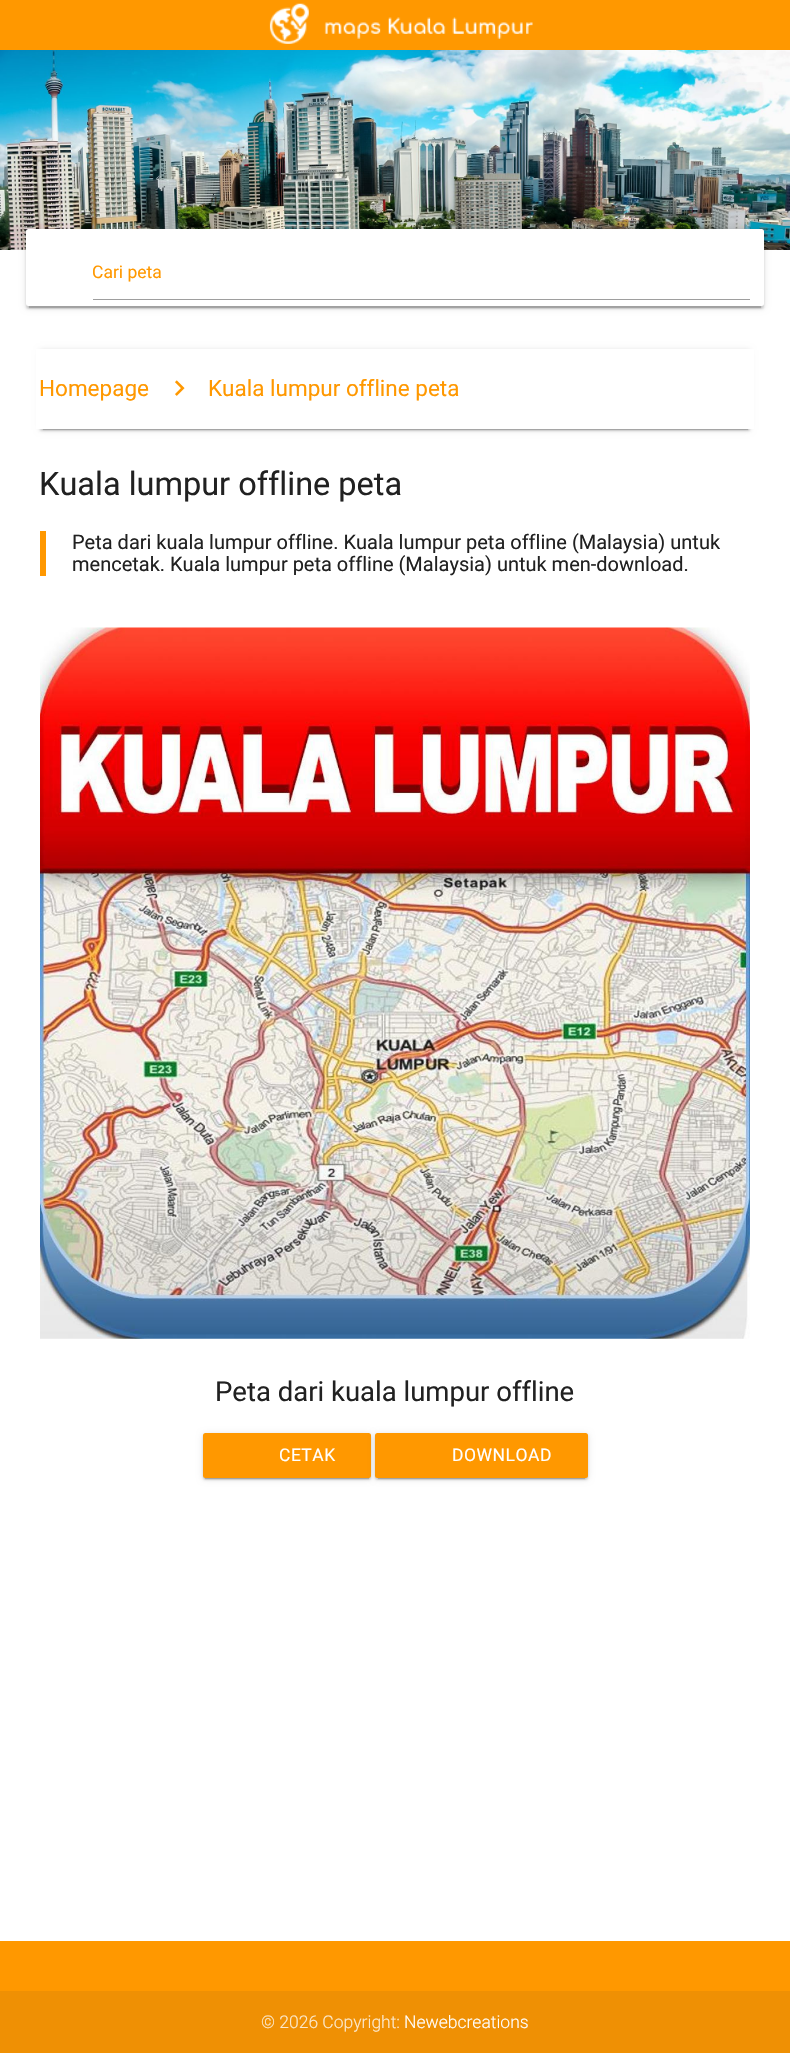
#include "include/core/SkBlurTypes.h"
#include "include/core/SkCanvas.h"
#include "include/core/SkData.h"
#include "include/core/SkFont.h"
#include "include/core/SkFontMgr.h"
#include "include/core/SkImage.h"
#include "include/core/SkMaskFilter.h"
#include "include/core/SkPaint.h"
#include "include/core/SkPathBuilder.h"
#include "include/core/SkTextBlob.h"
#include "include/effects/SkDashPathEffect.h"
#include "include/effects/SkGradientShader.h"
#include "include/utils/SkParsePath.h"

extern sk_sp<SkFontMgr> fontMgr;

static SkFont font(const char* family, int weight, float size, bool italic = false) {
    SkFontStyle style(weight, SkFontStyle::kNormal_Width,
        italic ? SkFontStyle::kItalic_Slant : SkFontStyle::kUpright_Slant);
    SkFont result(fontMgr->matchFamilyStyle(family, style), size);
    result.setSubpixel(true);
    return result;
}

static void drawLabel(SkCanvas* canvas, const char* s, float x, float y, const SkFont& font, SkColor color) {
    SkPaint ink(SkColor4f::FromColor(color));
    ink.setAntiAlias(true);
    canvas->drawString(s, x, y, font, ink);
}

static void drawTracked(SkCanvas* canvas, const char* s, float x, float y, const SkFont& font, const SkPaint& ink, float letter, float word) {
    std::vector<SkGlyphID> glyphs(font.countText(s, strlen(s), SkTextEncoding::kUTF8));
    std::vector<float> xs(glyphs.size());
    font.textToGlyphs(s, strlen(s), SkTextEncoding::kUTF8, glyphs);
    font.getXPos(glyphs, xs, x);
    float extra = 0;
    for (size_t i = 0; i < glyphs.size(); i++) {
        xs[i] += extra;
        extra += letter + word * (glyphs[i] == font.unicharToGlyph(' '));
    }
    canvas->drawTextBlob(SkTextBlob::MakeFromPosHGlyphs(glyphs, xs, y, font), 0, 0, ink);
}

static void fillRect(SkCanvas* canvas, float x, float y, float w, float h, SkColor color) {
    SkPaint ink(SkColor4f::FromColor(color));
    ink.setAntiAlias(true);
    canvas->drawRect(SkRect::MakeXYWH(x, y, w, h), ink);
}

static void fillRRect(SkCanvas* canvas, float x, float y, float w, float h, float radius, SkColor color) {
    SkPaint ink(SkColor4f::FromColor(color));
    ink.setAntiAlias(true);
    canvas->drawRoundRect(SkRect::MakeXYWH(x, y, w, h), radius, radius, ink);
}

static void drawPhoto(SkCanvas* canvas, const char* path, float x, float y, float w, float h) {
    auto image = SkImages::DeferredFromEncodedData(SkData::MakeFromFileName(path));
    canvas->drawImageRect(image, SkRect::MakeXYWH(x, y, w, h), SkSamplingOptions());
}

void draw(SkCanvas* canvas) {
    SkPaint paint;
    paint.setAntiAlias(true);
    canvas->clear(0xFFFFFFFF);
    fillRect(canvas, 0, 0, 790, 50, 0xFFFF9800);
    drawPhoto(canvas, "assets/img1.png", 269, 3, 264, 41);
    drawPhoto(canvas, "assets/img2.png", 0, 50, 790, 200);
    paint.setColor(0x33000000);
    paint.setMaskFilter(SkMaskFilter::MakeBlur(kNormal_SkBlurStyle, 0.5f));
    canvas->drawRect(SkRect::MakeXYWH(29, 235, 732, 73), paint);
    paint.setMaskFilter(nullptr);
    paint.setColor(0x1F000000);
    paint.setMaskFilter(SkMaskFilter::MakeBlur(kNormal_SkBlurStyle, 3));
    canvas->drawRoundRect(SkRect::MakeXYWH(26, 230, 738, 78), 2.5f, 2.5f, paint);
    paint.setMaskFilter(nullptr);
    paint.setColor(0x24000000);
    paint.setMaskFilter(SkMaskFilter::MakeBlur(kNormal_SkBlurStyle, 1));
    canvas->drawRoundRect(SkRect::MakeXYWH(26, 231, 738, 78), 2.5f, 2.5f, paint);
    paint.setMaskFilter(nullptr);
    fillRRect(canvas, 26, 229, 738, 77, 2.5f, 0xFFFFFFFF);
    SkFont font1 = font("Roboto", 400, 17.5f);
    drawLabel(canvas, "Cari peta", 92, 278, font1, 0xFFFF9800);
    fillRect(canvas, 93, 299, 657, 1, 0xFF9E9E9E);
    paint.setColor(0x33000000);
    paint.setMaskFilter(SkMaskFilter::MakeBlur(kNormal_SkBlurStyle, 0.5f));
    canvas->drawRect(SkRect::MakeXYWH(43, 355, 705, 75), paint);
    paint.setMaskFilter(nullptr);
    paint.setColor(0x1F000000);
    paint.setMaskFilter(SkMaskFilter::MakeBlur(kNormal_SkBlurStyle, 3));
    canvas->drawRect(SkRect::MakeXYWH(40, 350, 710, 80), paint);
    paint.setMaskFilter(nullptr);
    paint.setColor(0x24000000);
    paint.setMaskFilter(SkMaskFilter::MakeBlur(kNormal_SkBlurStyle, 1));
    canvas->drawRect(SkRect::MakeXYWH(40, 351, 710, 80), paint);
    paint.setMaskFilter(nullptr);
    fillRect(canvas, 36, 349, 718, 80, 0xFFFFFFFF);
    SkFont font2 = font("Roboto", 400, 22.5f);
    drawLabel(canvas, "Homepage", 39, 396, font2, 0xFFFF9800);
    drawPhoto(canvas, "assets/img3.png", 175, 380, 10, 16);
    drawLabel(canvas, "Kuala lumpur offline peta", 208, 396, font2, 0xFFFF9800);
    SkFont font3 = font("Roboto", 400, 32.5f);
    drawLabel(canvas, "Kuala lumpur offline peta", 39, 495, font3, 0xFF212121);
    fillRect(canvas, 40, 531, 6, 45, 0xFFFF9800);
    SkFont font4 = font("Roboto", 400, 20);
    drawLabel(canvas, "Peta dari kuala lumpur offline. Kuala lumpur peta offline (Malaysia) untuk", 72, 549, font4, 0xFF212121);
    drawLabel(canvas, "mencetak. Kuala lumpur peta offline (Malaysia) untuk men-download.", 72, 571, font4, 0xFF212121);
    drawPhoto(canvas, "assets/img4.png", 40, 627, 710, 712);
    SkFont font5 = font("Roboto", 400, 27.5f);
    drawLabel(canvas, "Peta dari kuala lumpur offline", 215, 1401, font5, 0xFF212121);
    paint.setColor(0x33000000);
    paint.setMaskFilter(SkMaskFilter::MakeBlur(kNormal_SkBlurStyle, 0.5f));
    canvas->drawRect(SkRect::MakeXYWH(205, 1439, 164, 40), paint);
    paint.setMaskFilter(nullptr);
    paint.setColor(0x1F000000);
    paint.setMaskFilter(SkMaskFilter::MakeBlur(kNormal_SkBlurStyle, 3));
    canvas->drawRoundRect(SkRect::MakeXYWH(203, 1434, 168, 45), 2.5f, 2.5f, paint);
    paint.setMaskFilter(nullptr);
    paint.setColor(0x24000000);
    paint.setMaskFilter(SkMaskFilter::MakeBlur(kNormal_SkBlurStyle, 1));
    canvas->drawRoundRect(SkRect::MakeXYWH(203, 1435, 168, 45), 2.5f, 2.5f, paint);
    paint.setMaskFilter(nullptr);
    fillRRect(canvas, 203, 1433, 168, 45, 2.5f, 0xFFFF9800);
    paint.setColor(0xFFFFFFFF);
    drawTracked(canvas, "CETAK", 279, 1461, font1, paint, 0.5f, 0);
    paint.setColor(0x33000000);
    paint.setMaskFilter(SkMaskFilter::MakeBlur(kNormal_SkBlurStyle, 0.5f));
    canvas->drawRect(SkRect::MakeXYWH(378, 1439, 207, 40), paint);
    paint.setMaskFilter(nullptr);
    paint.setColor(0x1F000000);
    paint.setMaskFilter(SkMaskFilter::MakeBlur(kNormal_SkBlurStyle, 3));
    canvas->drawRoundRect(SkRect::MakeXYWH(375, 1434, 213, 45), 2.5f, 2.5f, paint);
    paint.setMaskFilter(nullptr);
    paint.setColor(0x24000000);
    paint.setMaskFilter(SkMaskFilter::MakeBlur(kNormal_SkBlurStyle, 1));
    canvas->drawRoundRect(SkRect::MakeXYWH(375, 1435, 213, 45), 2.5f, 2.5f, paint);
    paint.setMaskFilter(nullptr);
    fillRRect(canvas, 375, 1433, 213, 45, 2.5f, 0xFFFF9800);
    paint.setColor(0xFFFFFFFF);
    drawTracked(canvas, "DOWNLOAD", 452, 1461, font1, paint, 0.5f, 0);
    fillRect(canvas, 0, 1941, 790, 50, 0xFFFF9800);
    fillRect(canvas, 0, 1991, 790, 62, 0xFFEF9004);
    SkFont font6 = font("Roboto", 300, 17.5f);
    drawLabel(canvas, "© 2026 Copyright:", 261, 2028, font6, 0xFFFCE9CD);
    drawLabel(canvas, "Newebcreations", 404, 2028, font6, 0xFFFFFFFF);
}
